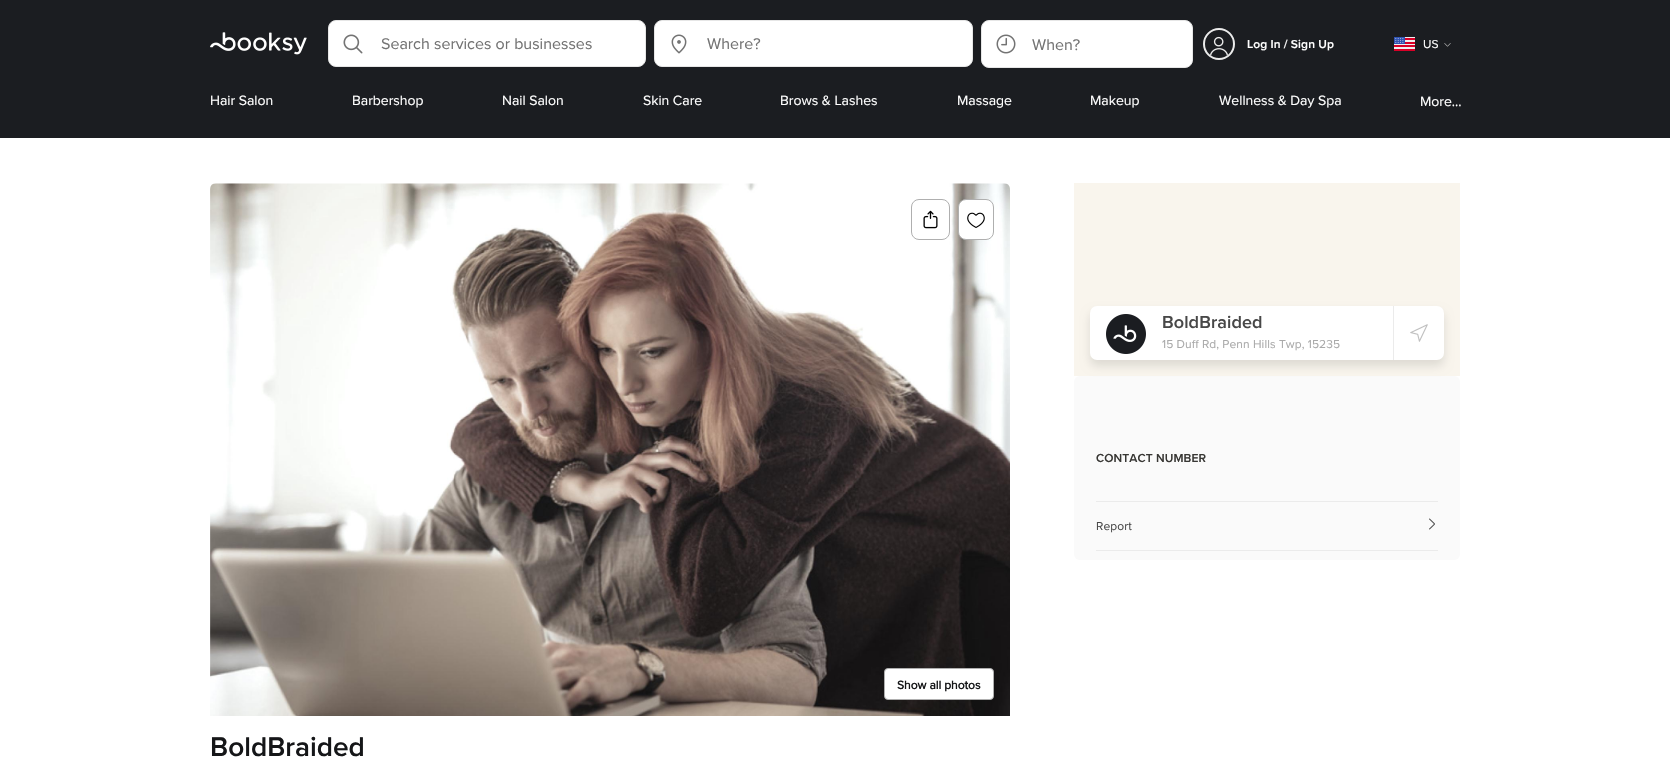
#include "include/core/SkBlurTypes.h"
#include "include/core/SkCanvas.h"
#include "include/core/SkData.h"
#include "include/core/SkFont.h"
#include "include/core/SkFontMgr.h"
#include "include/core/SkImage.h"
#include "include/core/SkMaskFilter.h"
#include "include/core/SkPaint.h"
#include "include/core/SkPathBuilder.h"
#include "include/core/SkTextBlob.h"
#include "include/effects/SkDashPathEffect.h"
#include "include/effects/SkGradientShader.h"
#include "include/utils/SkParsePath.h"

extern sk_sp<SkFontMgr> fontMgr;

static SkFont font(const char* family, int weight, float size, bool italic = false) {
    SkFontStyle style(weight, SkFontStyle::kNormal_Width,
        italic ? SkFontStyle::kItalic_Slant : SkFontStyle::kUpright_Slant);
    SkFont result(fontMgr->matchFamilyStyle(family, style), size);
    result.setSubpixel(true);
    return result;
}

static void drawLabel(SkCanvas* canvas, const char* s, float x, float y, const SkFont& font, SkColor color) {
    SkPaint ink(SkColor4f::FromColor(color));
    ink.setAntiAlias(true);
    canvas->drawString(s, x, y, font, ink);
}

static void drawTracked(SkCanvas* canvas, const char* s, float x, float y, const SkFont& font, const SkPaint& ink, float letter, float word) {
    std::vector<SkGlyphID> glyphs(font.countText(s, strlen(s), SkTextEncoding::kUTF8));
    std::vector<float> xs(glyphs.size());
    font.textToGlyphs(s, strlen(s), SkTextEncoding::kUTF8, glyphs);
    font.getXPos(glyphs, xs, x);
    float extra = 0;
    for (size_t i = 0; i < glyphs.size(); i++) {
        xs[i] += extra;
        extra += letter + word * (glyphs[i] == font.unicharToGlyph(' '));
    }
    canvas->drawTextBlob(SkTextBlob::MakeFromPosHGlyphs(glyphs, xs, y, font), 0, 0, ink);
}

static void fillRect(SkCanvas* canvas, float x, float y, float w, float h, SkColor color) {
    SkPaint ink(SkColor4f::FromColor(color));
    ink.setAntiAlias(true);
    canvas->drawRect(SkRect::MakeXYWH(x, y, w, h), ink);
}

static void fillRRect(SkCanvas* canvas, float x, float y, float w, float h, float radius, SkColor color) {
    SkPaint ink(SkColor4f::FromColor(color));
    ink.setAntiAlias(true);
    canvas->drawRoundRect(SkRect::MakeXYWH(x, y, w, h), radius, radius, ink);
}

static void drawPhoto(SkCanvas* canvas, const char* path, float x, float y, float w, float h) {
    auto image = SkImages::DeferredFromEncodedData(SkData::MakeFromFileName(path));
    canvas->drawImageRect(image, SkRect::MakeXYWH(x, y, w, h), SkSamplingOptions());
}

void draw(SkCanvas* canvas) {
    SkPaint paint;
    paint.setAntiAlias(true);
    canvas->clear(0xFFFFFFFF);
    fillRect(canvas, 0, 0, 1670, 138, 0xFF1B1D21);
    drawPhoto(canvas, "assets/img1.png", 210, 32, 97, 23);
    paint.setColor(0xFFFFFFFF);
    canvas->drawRoundRect(SkRect::MakeXYWH(328.5f, 20.5f, 317, 46), 7.5f, 7.5f, paint);
    paint.setStroke(true);
    paint.setStrokeWidth(1);
    paint.setColor(0xFFE6E6E6);
    canvas->drawRoundRect(SkRect::MakeXYWH(328.5f, 20.5f, 317, 46), 7.5f, 7.5f, paint);
    drawPhoto(canvas, "assets/img2.png", 343, 34, 20, 20);
    SkFont font1 = font("Proxima Nova", 400, 16);
    drawLabel(canvas, "Search services or businesses", 381, 49, font1, 0xFF737373);
    paint.setStroke(false);
    paint.setColor(0xFFFFFFFF);
    canvas->drawRoundRect(SkRect::MakeXYWH(654.5f, 20.5f, 318, 46), 7.5f, 7.5f, paint);
    paint.setStroke(true);
    paint.setColor(0xFFE6E6E6);
    canvas->drawRoundRect(SkRect::MakeXYWH(654.5f, 20.5f, 318, 46), 7.5f, 7.5f, paint);
    drawPhoto(canvas, "assets/img3.png", 671, 34, 16, 20);
    drawLabel(canvas, "Where?", 707, 49, font1, 0xFF737373);
    paint.setStroke(false);
    paint.setColor(0xFFFFFFFF);
    canvas->drawRoundRect(SkRect::MakeXYWH(981.5f, 20.5f, 211, 47), 7.5f, 7.5f, paint);
    paint.setStroke(true);
    paint.setColor(0xFFE6E6E6);
    canvas->drawRoundRect(SkRect::MakeXYWH(981.5f, 20.5f, 211, 47), 7.5f, 7.5f, paint);
    drawPhoto(canvas, "assets/img4.png", 996, 34, 20, 20);
    drawLabel(canvas, "When?", 1032, 50, font1, 0xFF737373);
    paint.setStrokeWidth(2);
    paint.setColor(0xFFEBEBEB);
    canvas->drawCircle(1219, 44, 15, paint);
    drawPhoto(canvas, "assets/img5.png", 1210, 36, 18, 20);
    SkFont font2 = font("Proxima Nova", 600, 12);
    paint.setStroke(false);
    paint.setColor(0xFFFFFFFF);
    drawTracked(canvas, "Log In / Sign Up", 1247, 48, font2, paint, 0.1f, 0);
    drawPhoto(canvas, "assets/img6.png", 1394, 37, 21, 14);
    SkFont font3 = font("Proxima Nova", 400, 12);
    drawTracked(canvas, "US", 1423, 48, font3, paint, 0.1f, 0);
    drawPhoto(canvas, "assets/img7.png", 1444, 43, 7, 4);
    SkFont font4 = font("Proxima Nova", 400, 14);
    drawLabel(canvas, "Hair Salon", 210, 105, font4, 0xFFFFFFFF);
    drawLabel(canvas, "Barbershop", 352, 105, font4, 0xFFFFFFFF);
    drawLabel(canvas, "Nail Salon", 502, 105, font4, 0xFFFFFFFF);
    drawLabel(canvas, "Skin Care", 643, 105, font4, 0xFFFFFFFF);
    drawLabel(canvas, "Brows & Lashes", 780, 105, font4, 0xFFFFFFFF);
    drawLabel(canvas, "Massage", 957, 105, font4, 0xFFFFFFFF);
    drawLabel(canvas, "Makeup", 1090, 105, font4, 0xFFFFFFFF);
    drawLabel(canvas, "Wellness & Day Spa", 1219, 105, font4, 0xFFFFFFFF);
    drawLabel(canvas, "More...", 1420, 106, font4, 0xFFFFFFFF);
    fillRect(canvas, 1074, 183, 386, 193, 0xFFF9F5ED);
    fillRRect(canvas, 1074, 376, 386, 184, 6, 0xFFFAFAFA);
    paint.setColor(0x1C000000);
    paint.setMaskFilter(SkMaskFilter::MakeBlur(kNormal_SkBlurStyle, 5));
    canvas->drawRoundRect(SkRect::MakeXYWH(1090, 312, 354, 54), 7, 7, paint);
    paint.setMaskFilter(nullptr);
    fillRRect(canvas, 1090, 306, 354, 54, 7, 0xFFFFFFFF);
    drawPhoto(canvas, "assets/img8.png", 1106, 314, 40, 40);
    SkFont font5 = font("Proxima Nova", 600, 18);
    paint.setColor(0xFF484848);
    drawTracked(canvas, "BoldBraided", 1162, 328, font5, paint, 0.1f, 0);
    paint.setColor(0xFFA9A9A9);
    drawTracked(canvas, "15 Duff Rd, Penn Hills Twp, 15235", 1162, 348, font3, paint, 0.1f, 0);
    fillRect(canvas, 1393, 306, 1, 54, 0xFFEBEBEB);
    drawPhoto(canvas, "assets/img9.png", 1410, 324, 18, 18);
    paint.setColor(0xFF383734);
    drawTracked(canvas, "CONTACT NUMBER", 1096, 462, font2, paint, 0.1f, 0);
    fillRect(canvas, 1096, 501, 342, 1, 0xFFEBEBEB);
    fillRect(canvas, 1096, 550, 342, 1, 0xFFEBEBEB);
    paint.setColor(0xFF484848);
    drawTracked(canvas, "Report", 1096, 530, font3, paint, 0.1f, 0);
    drawPhoto(canvas, "assets/img10.png", 1429, 518, 6, 12);
    drawPhoto(canvas, "assets/img13.png", 210, 183, 800, 533);
    paint.setStroke(true);
    paint.setStrokeWidth(1);
    paint.setColor(0xFFAFAFAF);
    canvas->drawRoundRect(SkRect::MakeXYWH(911.5f, 199.5f, 38, 40), 7.5f, 7.5f, paint);
    drawPhoto(canvas, "assets/img11.png", 923, 210, 15, 19);
    paint.setStroke(false);
    paint.setColor(0xFFFFFFFF);
    canvas->drawRoundRect(SkRect::MakeXYWH(958.5f, 199.5f, 35, 40), 7.5f, 7.5f, paint);
    paint.setStroke(true);
    paint.setColor(0xFFAFAFAF);
    canvas->drawRoundRect(SkRect::MakeXYWH(958.5f, 199.5f, 35, 40), 7.5f, 7.5f, paint);
    drawPhoto(canvas, "assets/img12.png", 967, 212, 18, 16);
    paint.setStroke(false);
    paint.setColor(0xFFFFFFFF);
    canvas->drawRoundRect(SkRect::MakeXYWH(884.5f, 668.5f, 109, 31), 3.5f, 3.5f, paint);
    paint.setStroke(true);
    paint.setColor(0xFFAFAFAF);
    canvas->drawRoundRect(SkRect::MakeXYWH(884.5f, 668.5f, 109, 31), 3.5f, 3.5f, paint);
    SkFont font6 = font("Proxima Nova", 700, 12);
    drawLabel(canvas, "Show all photos", 897, 689, font6, 0xFF151618);
    SkFont font7 = font("Proxima Nova", 600, 28);
    drawLabel(canvas, "BoldBraided", 210, 756, font7, 0xFF151618);
}
